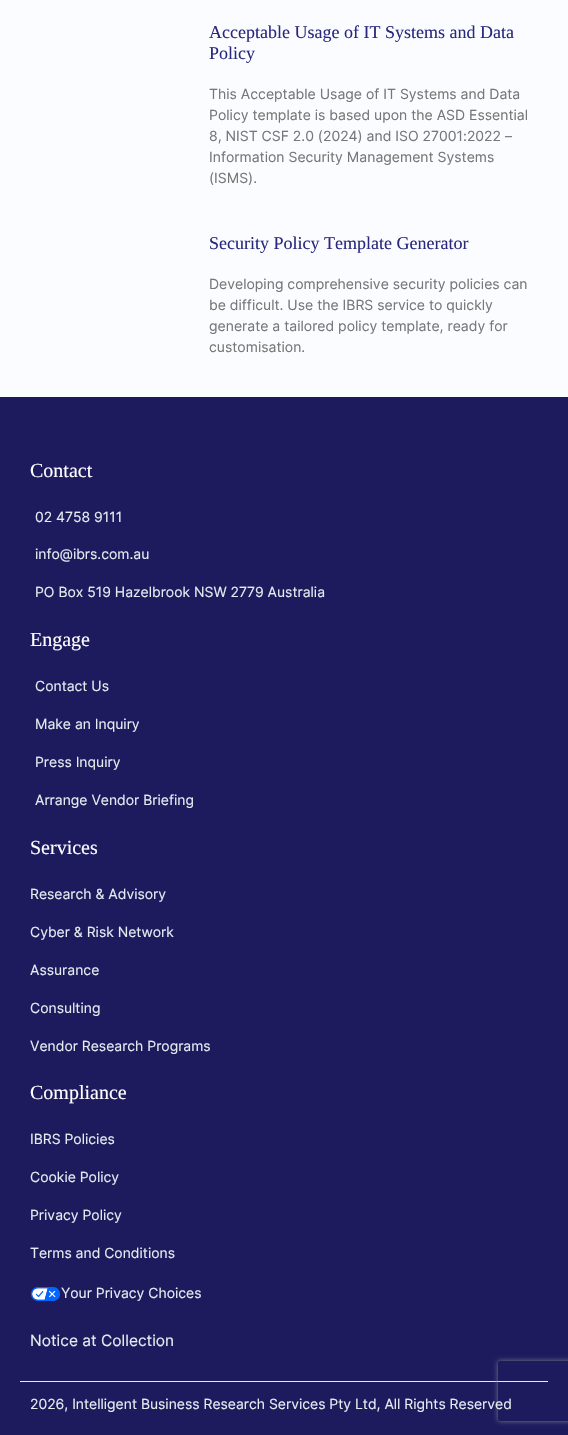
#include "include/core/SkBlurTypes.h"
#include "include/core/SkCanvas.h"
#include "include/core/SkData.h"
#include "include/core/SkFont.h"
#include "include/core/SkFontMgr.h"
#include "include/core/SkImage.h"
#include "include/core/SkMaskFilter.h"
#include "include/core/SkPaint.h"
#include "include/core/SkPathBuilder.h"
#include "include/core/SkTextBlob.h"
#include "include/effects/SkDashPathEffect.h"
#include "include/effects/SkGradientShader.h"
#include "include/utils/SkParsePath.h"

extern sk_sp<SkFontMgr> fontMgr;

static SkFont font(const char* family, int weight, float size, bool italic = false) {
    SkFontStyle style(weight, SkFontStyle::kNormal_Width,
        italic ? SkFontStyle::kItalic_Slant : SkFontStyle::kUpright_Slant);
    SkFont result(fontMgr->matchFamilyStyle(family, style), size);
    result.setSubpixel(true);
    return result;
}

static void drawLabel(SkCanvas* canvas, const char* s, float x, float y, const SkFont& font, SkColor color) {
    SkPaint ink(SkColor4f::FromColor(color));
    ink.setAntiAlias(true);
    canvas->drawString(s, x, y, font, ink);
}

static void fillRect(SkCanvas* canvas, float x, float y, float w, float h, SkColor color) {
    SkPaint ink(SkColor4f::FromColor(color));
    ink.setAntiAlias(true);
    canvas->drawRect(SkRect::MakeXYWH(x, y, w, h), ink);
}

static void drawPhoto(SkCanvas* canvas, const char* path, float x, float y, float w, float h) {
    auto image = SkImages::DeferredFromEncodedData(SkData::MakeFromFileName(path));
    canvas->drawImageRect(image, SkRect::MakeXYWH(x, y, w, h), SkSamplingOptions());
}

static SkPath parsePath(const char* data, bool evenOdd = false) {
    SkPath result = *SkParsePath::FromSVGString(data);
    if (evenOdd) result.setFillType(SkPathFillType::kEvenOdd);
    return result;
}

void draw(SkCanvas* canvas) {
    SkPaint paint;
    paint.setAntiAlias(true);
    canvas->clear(0xFFFBFCFF);
    SkFont font1 = font("Liberation Serif", 400, 18);
    drawLabel(canvas, "Acceptable Usage of IT Systems and Data", 209, 38, font1, 0xFF29287D);
    drawLabel(canvas, "Policy", 209, 59, font1, 0xFF29287D);
    SkFont font2 = font("Inter", 400, 14);
    drawLabel(canvas, "This Acceptable Usage of IT Systems and Data", 209, 99, font2, 0xFF777777);
    drawLabel(canvas, "Policy template is based upon the ASD Essential", 209, 120, font2, 0xFF777777);
    drawLabel(canvas, "8, NIST CSF 2.0 (2024) and ISO 27001:2022 –", 209, 141, font2, 0xFF777777);
    drawLabel(canvas, "Information Security Management Systems", 209, 162, font2, 0xFF777777);
    drawLabel(canvas, "(ISMS).", 209, 183, font2, 0xFF777777);
    drawLabel(canvas, "Security Policy Template Generator", 209, 249, font1, 0xFF29287D);
    drawLabel(canvas, "Developing comprehensive security policies can", 209, 289, font2, 0xFF777777);
    drawLabel(canvas, "be difficult. Use the IBRS service to quickly", 209, 310, font2, 0xFF777777);
    drawLabel(canvas, "generate a tailored policy template, ready for", 209, 331, font2, 0xFF777777);
    drawLabel(canvas, "customisation.", 209, 352, font2, 0xFF777777);
    fillRect(canvas, 0, 397, 568, 1038, 0xFF1D1B5E);
    SkFont font3 = font("Liberation Serif", 400, 20);
    drawLabel(canvas, "Contact", 30, 477, font3, 0xFFFFFFFF);
    SkFont font4 = font("Inter", 400, 13.95f);
    drawLabel(canvas, "02 4758 9111", 35, 522, font4, 0xFFE5EBEF);
    drawLabel(canvas, "info@ibrs.com.au", 35, 559, font4, 0xFFE5EBEF);
    drawLabel(canvas, "PO Box 519 Hazelbrook NSW 2779 Australia", 35, 597, font4, 0xFFE5EBEF);
    drawLabel(canvas, "Engage", 30, 646, font3, 0xFFFFFFFF);
    drawLabel(canvas, "Contact Us", 35, 691, font4, 0xFFE5EBEF);
    drawLabel(canvas, "Make an Inquiry", 35, 729, font4, 0xFFE5EBEF);
    drawLabel(canvas, "Press Inquiry", 35, 767, font4, 0xFFE5EBEF);
    drawLabel(canvas, "Arrange Vendor Briefing", 35, 805, font4, 0xFFE5EBEF);
    drawLabel(canvas, "Services", 30, 854, font3, 0xFFFFFFFF);
    drawLabel(canvas, "Research & Advisory", 30, 899, font4, 0xFFE5EBEF);
    drawLabel(canvas, "Cyber & Risk Network", 30, 937, font4, 0xFFE5EBEF);
    drawLabel(canvas, "Assurance", 30, 975, font4, 0xFFE5EBEF);
    drawLabel(canvas, "Consulting", 30, 1013, font4, 0xFFE5EBEF);
    drawLabel(canvas, "Vendor Research Programs", 30, 1051, font4, 0xFFE5EBEF);
    drawLabel(canvas, "Compliance", 30, 1099, font3, 0xFFFFFFFF);
    drawLabel(canvas, "IBRS Policies", 30, 1144, font4, 0xFFE5EBEF);
    drawLabel(canvas, "Cookie Policy", 30, 1182, font4, 0xFFE5EBEF);
    drawLabel(canvas, "Privacy Policy", 30, 1220, font4, 0xFFE5EBEF);
    drawLabel(canvas, "Terms and Conditions", 30, 1258, font4, 0xFFE5EBEF);
    drawPhoto(canvas, "assets/img1.png", 30, 1287, 31, 14);
    drawLabel(canvas, "Your Privacy Choices", 61, 1298, font4, 0xFFE5EBEF);
    SkFont font5 = font("Inter", 400, 15.5f);
    drawLabel(canvas, "Notice at Collection", 30, 1346, font5, 0xFFE5EBEF);
    fillRect(canvas, 20, 1381, 528, 1, 0xFFE5EBEF);
    canvas->save();
    canvas->clipPath(parsePath("M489 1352H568V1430H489ZM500 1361H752C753 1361 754 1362 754 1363V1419C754 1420 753 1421 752 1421H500C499 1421 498 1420 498 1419V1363C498 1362 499 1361 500 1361Z", true), true);
    paint.setColor(0xFF808080);
    paint.setMaskFilter(SkMaskFilter::MakeBlur(kNormal_SkBlurStyle, 2.5f));
    canvas->drawRoundRect(SkRect::MakeXYWH(498, 1361, 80, 60), 2, 2, paint);
    paint.setMaskFilter(nullptr);
    canvas->restore();
    drawLabel(canvas, "2026, Intelligent Business Research Services Pty Ltd, All Rights Reserved", 30, 1409, font4, 0xFFE5EBEF);
}
